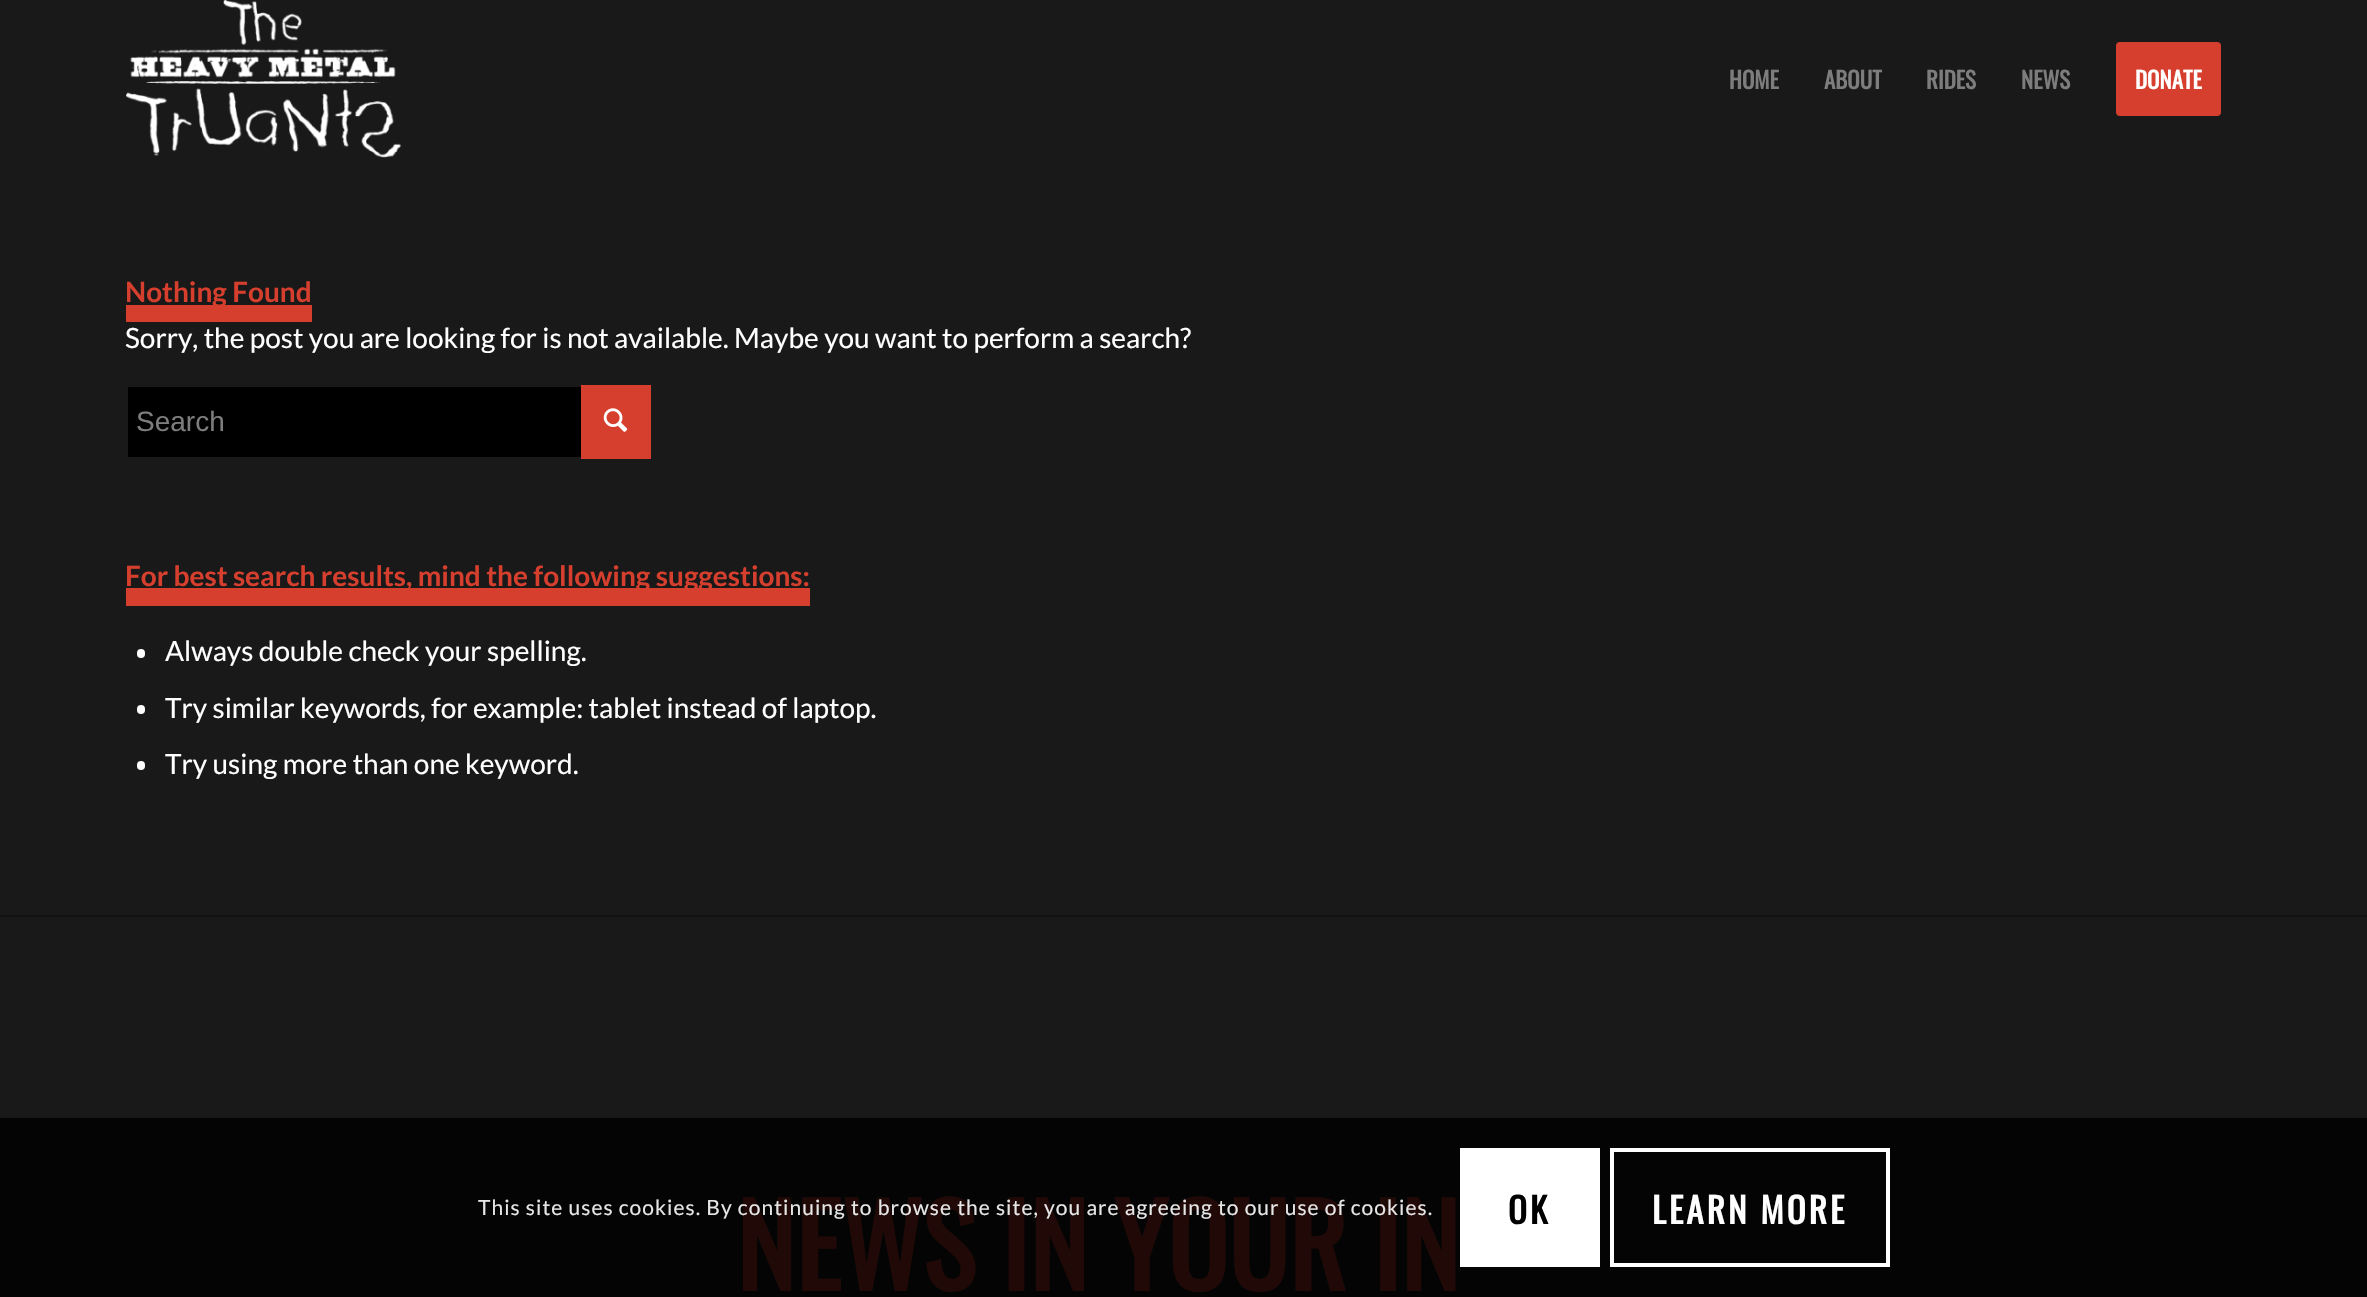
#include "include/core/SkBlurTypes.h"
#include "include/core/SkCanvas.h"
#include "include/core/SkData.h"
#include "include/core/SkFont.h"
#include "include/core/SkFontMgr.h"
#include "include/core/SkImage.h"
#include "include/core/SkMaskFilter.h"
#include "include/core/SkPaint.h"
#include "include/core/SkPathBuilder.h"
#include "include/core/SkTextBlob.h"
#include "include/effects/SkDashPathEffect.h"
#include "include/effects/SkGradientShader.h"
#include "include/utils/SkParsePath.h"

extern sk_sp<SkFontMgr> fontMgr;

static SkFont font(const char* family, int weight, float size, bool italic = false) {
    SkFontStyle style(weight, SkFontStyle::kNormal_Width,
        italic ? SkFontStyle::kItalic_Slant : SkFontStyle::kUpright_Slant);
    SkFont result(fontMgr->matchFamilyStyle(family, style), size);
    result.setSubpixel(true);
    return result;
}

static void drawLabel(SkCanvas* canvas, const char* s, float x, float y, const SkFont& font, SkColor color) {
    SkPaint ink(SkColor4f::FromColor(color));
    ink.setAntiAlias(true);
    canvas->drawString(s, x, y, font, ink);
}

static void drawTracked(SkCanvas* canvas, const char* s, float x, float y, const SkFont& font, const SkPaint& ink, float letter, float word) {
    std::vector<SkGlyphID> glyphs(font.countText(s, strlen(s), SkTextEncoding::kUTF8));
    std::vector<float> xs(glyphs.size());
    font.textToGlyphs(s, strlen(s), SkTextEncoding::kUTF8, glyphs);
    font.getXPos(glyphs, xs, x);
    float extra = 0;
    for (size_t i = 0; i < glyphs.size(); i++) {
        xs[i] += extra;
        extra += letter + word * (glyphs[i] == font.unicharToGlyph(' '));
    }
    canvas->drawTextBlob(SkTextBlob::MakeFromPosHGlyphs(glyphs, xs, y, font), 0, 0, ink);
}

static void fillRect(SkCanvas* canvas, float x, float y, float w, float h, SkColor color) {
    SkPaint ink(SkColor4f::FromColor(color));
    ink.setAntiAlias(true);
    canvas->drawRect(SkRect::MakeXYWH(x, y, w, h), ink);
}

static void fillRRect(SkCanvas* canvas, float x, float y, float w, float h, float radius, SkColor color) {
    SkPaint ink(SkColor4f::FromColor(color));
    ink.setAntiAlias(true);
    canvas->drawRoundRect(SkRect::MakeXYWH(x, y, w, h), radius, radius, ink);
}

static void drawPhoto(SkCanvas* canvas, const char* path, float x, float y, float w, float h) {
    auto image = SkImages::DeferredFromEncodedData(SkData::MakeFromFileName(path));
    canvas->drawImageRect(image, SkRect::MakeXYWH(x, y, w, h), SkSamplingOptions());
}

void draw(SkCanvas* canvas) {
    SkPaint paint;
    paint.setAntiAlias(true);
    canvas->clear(0xFF191919);
    drawPhoto(canvas, "assets/img1.png", 126, 0, 275, 158);
    SkFont font1 = font("Oswald", 700, 23);
    drawLabel(canvas, "HOME", 1729, 89, font1, 0xFF7D7D7D);
    drawLabel(canvas, "ABOUT", 1824, 89, font1, 0xFF7D7D7D);
    drawLabel(canvas, "RIDES", 1926, 89, font1, 0xFF7D7D7D);
    drawLabel(canvas, "NEWS", 2021, 89, font1, 0xFF7D7D7D);
    paint.setColor(0xFFD63E2D);
    canvas->drawRoundRect(SkRect::MakeXYWH(2118, 44, 101, 70), 2, 2, paint);
    paint.setStroke(true);
    paint.setStrokeWidth(4);
    canvas->drawRoundRect(SkRect::MakeXYWH(2118, 44, 101, 70), 2, 2, paint);
    drawLabel(canvas, "DONATE", 2135, 89, font1, 0xFFFFFFFF);
    fillRect(canvas, 0, 1118, 2367, 179, 0xFF040404);
    fillRect(canvas, 126, 305, 186, 17, 0xFFD63E2D);
    SkFont font2 = font("Lato", 700, 28);
    drawLabel(canvas, "Nothing Found", 125, 302, font2, 0xFFD63E2D);
    SkFont font3 = font("Lato", 400, 28);
    drawLabel(canvas, "Sorry, the post you are looking for is not available. Maybe you want to perform a search?", 125, 348, font3, 0xFFFFFFFF);
    fillRect(canvas, 128, 387, 453, 70, 0xFF000000);
    SkFont font4 = font("Liberation Sans", 400, 28);
    drawLabel(canvas, "Search", 136, 431, font4, 0xFF7D7D7D);
    fillRect(canvas, 581, 385, 70, 74, 0xFFD63E2D);
    drawPhoto(canvas, "assets/img2.png", 603, 408, 25, 24);
    fillRect(canvas, 126, 588, 684, 18, 0xFFD63E2D);
    drawLabel(canvas, "For best search results, mind the following suggestions:", 125, 586, font2, 0xFFD63E2D);
    fillRRect(canvas, 137, 649, 8, 9, 4, 0xFFFFFFFF);
    drawLabel(canvas, "Always double check your spelling.", 165, 661, font3, 0xFFFFFFFF);
    fillRRect(canvas, 137, 705, 8, 9, 4, 0xFFFFFFFF);
    drawLabel(canvas, "Try similar keywords, for example: tablet instead of laptop.", 165, 718, font3, 0xFFFFFFFF);
    fillRRect(canvas, 137, 761, 8, 9, 4, 0xFFFFFFFF);
    drawLabel(canvas, "Try using more than one keyword.", 165, 774, font3, 0xFFFFFFFF);
    fillRect(canvas, 0, 915, 2367, 2, 0xFF111111);
    SkFont font5 = font("Oswald", 700, 112);
    drawLabel(canvas, "NEWS IN YOUR IN", 736, 1291, font5, 0xFF200907);
    SkFont font6 = font("Lato", 400, 21);
    paint.setStroke(false);
    paint.setColor(0xFFE7E6E6);
    drawTracked(canvas, "This site uses cookies. By continuing to browse the site, you are agreeing to our use of cookies.", 478, 1215, font6, paint, 1.05f, 0);
    fillRect(canvas, 1460, 1148, 140, 119, 0xFFFFFFFF);
    SkFont font7 = font("Oswald", 700, 35);
    paint.setColor(0xFF000000);
    drawTracked(canvas, "OK", 1508, 1224, font7, paint, 3.1f, 0);
    paint.setStroke(true);
    paint.setColor(0xFFFFFFFF);
    canvas->drawRect(SkRect::MakeXYWH(1612, 1150, 276, 115), paint);
    paint.setStroke(false);
    drawTracked(canvas, "LEARN MORE", 1652, 1224, font7, paint, 3.1f, 0);
}
